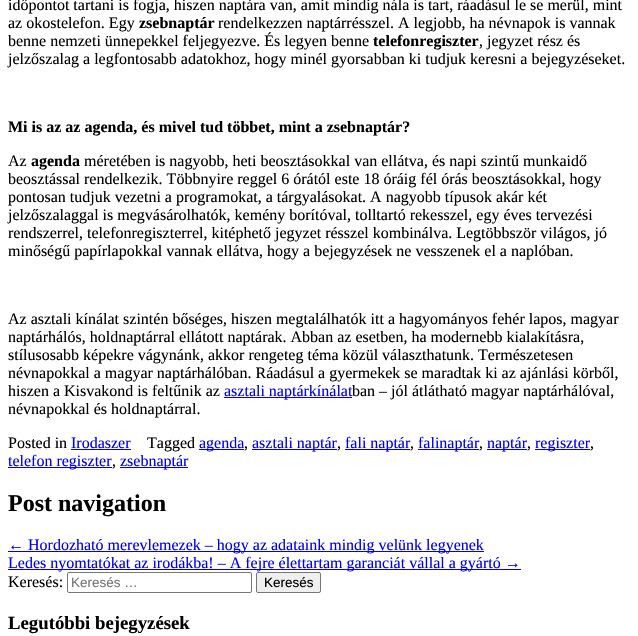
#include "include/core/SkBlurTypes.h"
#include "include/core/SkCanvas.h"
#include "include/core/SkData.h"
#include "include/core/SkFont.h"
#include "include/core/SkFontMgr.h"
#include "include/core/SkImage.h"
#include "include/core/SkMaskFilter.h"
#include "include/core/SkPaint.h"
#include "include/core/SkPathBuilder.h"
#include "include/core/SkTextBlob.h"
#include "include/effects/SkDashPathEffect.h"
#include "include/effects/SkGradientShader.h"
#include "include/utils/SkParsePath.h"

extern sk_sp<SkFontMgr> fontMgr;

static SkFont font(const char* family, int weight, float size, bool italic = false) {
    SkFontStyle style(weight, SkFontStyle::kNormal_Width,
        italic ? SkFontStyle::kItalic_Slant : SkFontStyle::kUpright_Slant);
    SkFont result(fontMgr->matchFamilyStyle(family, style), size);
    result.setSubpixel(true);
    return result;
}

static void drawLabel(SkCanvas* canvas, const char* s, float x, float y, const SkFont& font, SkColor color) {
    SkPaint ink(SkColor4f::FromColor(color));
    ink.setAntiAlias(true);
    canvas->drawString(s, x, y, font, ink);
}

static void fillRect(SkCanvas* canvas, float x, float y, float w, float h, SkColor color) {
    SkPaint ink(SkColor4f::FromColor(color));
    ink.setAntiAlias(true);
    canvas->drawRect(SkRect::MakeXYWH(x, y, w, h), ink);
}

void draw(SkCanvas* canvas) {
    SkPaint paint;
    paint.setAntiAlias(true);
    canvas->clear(0xFFFFFFFF);
    SkFont font1 = font("Liberation Serif", 400, 16);
    drawLabel(canvas, "időpontot tartani is fogja, hiszen naptára van, amit mindig nála is tart, ráadásul le se merül, mint", 8, 10, font1, 0xFF000000);
    drawLabel(canvas, "az okostelefon. Egy", 8, 28, font1, 0xFF000000);
    SkFont font2 = font("Liberation Serif", 700, 16);
    drawLabel(canvas, "zsebnaptár", 139, 28, font2, 0xFF000000);
    drawLabel(canvas, "rendelkezzen naptárrésszel. A legjobb, ha névnapok is vannak", 218, 28, font1, 0xFF000000);
    drawLabel(canvas, "benne nemzeti ünnepekkel feljegyezve. És legyen benne", 8, 46, font1, 0xFF000000);
    drawLabel(canvas, "telefonregiszter", 373, 46, font2, 0xFF000000);
    drawLabel(canvas, ", jegyzet rész és", 479, 46, font1, 0xFF000000);
    drawLabel(canvas, "jelzőszalag a legfontosabb adatokhoz, hogy minél gyorsabban ki tudjuk keresni a bejegyzéseket.", 8, 64, font1, 0xFF000000);
    drawLabel(canvas, "Mi is az az agenda, és mivel tud többet, mint a zsebnaptár?", 8, 132, font2, 0xFF000000);
    drawLabel(canvas, "Az", 8, 166, font1, 0xFF000000);
    drawLabel(canvas, "agenda", 31, 166, font2, 0xFF000000);
    drawLabel(canvas, "méretében is nagyobb, heti beosztásokkal van ellátva, és napi szintű munkaidő", 84, 166, font1, 0xFF000000);
    drawLabel(canvas, "beosztással rendelkezik. Többnyire reggel 6 órától este 18 óráig fél órás beosztásokkal, hogy", 8, 184, font1, 0xFF000000);
    drawLabel(canvas, "pontosan tudjuk vezetni a programokat, a tárgyalásokat. A nagyobb típusok akár két", 8, 202, font1, 0xFF000000);
    drawLabel(canvas, "jelzőszalaggal is megvásárolhatók, kemény borítóval, tolltartó rekesszel, egy éves tervezési", 8, 220, font1, 0xFF000000);
    drawLabel(canvas, "rendszerrel, telefonregiszterrel, kitéphető jegyzet résszel kombinálva. Legtöbbször világos, jó", 8, 238, font1, 0xFF000000);
    drawLabel(canvas, "minőségű papírlapokkal vannak ellátva, hogy a bejegyzések ne vesszenek el a naplóban.", 8, 256, font1, 0xFF000000);
    drawLabel(canvas, "Az asztali kínálat szintén bőséges, hiszen megtalálhatók itt a hagyományos fehér lapos, magyar", 8, 324, font1, 0xFF000000);
    drawLabel(canvas, "naptárhálós, holdnaptárral ellátott naptárak. Abban az esetben, ha modernebb kialakításra,", 8, 342, font1, 0xFF000000);
    drawLabel(canvas, "stílusosabb képekre vágynánk, akkor rengeteg téma közül választhatunk. Természetesen", 8, 360, font1, 0xFF000000);
    drawLabel(canvas, "névnapokkal a magyar naptárhálóban. Ráadásul a gyermekek se maradtak ki az ajánlási körből,", 8, 378, font1, 0xFF000000);
    drawLabel(canvas, "hiszen a Kisvakond is feltűnik az", 8, 396, font1, 0xFF000000);
    fillRect(canvas, 224, 397, 128, 1, 0xFF0000EE);
    drawLabel(canvas, "asztali naptárkínálat", 224, 396, font1, 0xFF0000EE);
    drawLabel(canvas, "ban – jól átlátható magyar naptárhálóval,", 352, 396, font1, 0xFF000000);
    drawLabel(canvas, "névnapokkal és holdnaptárral.", 8, 414, font1, 0xFF000000);
    drawLabel(canvas, "Posted in", 8, 448, font1, 0xFF000000);
    drawLabel(canvas, "Irodaszer", 71, 448, font1, 0xFF0000EE);
    fillRect(canvas, 71, 449, 60, 1, 0xFF0000EE);
    drawLabel(canvas, "Tagged", 147, 448, font1, 0xFF000000);
    fillRect(canvas, 199, 449, 45, 1, 0xFF0000EE);
    drawLabel(canvas, "agenda", 199, 448, font1, 0xFF0000EE);
    drawLabel(canvas, ",", 244, 448, font1, 0xFF000000);
    fillRect(canvas, 252, 449, 85, 1, 0xFF0000EE);
    drawLabel(canvas, "asztali naptár", 252, 448, font1, 0xFF0000EE);
    drawLabel(canvas, ",", 337, 448, font1, 0xFF000000);
    fillRect(canvas, 345, 449, 65, 1, 0xFF0000EE);
    drawLabel(canvas, "fali naptár", 345, 448, font1, 0xFF0000EE);
    drawLabel(canvas, ",", 410, 448, font1, 0xFF000000);
    fillRect(canvas, 418, 449, 61, 1, 0xFF0000EE);
    drawLabel(canvas, "falinaptár", 418, 448, font1, 0xFF0000EE);
    drawLabel(canvas, ",", 479, 448, font1, 0xFF000000);
    fillRect(canvas, 487, 449, 40, 1, 0xFF0000EE);
    drawLabel(canvas, "naptár", 487, 448, font1, 0xFF0000EE);
    drawLabel(canvas, ",", 527, 448, font1, 0xFF000000);
    fillRect(canvas, 535, 449, 55, 1, 0xFF0000EE);
    drawLabel(canvas, "regiszter", 535, 448, font1, 0xFF0000EE);
    drawLabel(canvas, ",", 590, 448, font1, 0xFF000000);
    fillRect(canvas, 8, 467, 104, 1, 0xFF0000EE);
    drawLabel(canvas, "telefon regiszter", 8, 466, font1, 0xFF0000EE);
    drawLabel(canvas, ",", 112, 466, font1, 0xFF000000);
    fillRect(canvas, 120, 467, 68, 1, 0xFF0000EE);
    drawLabel(canvas, "zsebnaptár", 120, 466, font1, 0xFF0000EE);
    SkFont font3 = font("Liberation Serif", 700, 24);
    drawLabel(canvas, "Post navigation", 8, 511, font3, 0xFF000000);
    fillRect(canvas, 8, 551, 476, 1, 0xFF0000EE);
    drawLabel(canvas, "← Hordozható merevlemezek – hogy az adataink mindig velünk legyenek", 8, 550, font1, 0xFF0000EE);
    fillRect(canvas, 8, 569, 513, 1, 0xFF0000EE);
    drawLabel(canvas, "Ledes nyomtatókat az irodákba! – A fejre élettartam garanciát vállal a gyártó →", 8, 568, font1, 0xFF0000EE);
    drawLabel(canvas, "Keresés:", 8, 587, font1, 0xFF000000);
    paint.setStroke(true);
    paint.setStrokeWidth(1);
    paint.setColor(0xFF767676);
    canvas->drawRoundRect(SkRect::MakeXYWH(67.5f, 572.5f, 184, 20), 1.5f, 1.5f, paint);
    SkFont font4 = font("Liberation Sans", 400, 13.5f);
    drawLabel(canvas, "Keresés …", 71, 587, font4, 0xFF757575);
    paint.setStroke(false);
    paint.setColor(0xFFEFEFEF);
    canvas->drawRoundRect(SkRect::MakeXYWH(256.5f, 572.5f, 64, 20), 1.5f, 1.5f, paint);
    paint.setStroke(true);
    paint.setColor(0xFF767676);
    canvas->drawRoundRect(SkRect::MakeXYWH(256.5f, 572.5f, 64, 20), 1.5f, 1.5f, paint);
    drawLabel(canvas, "Keresés", 264, 587, font4, 0xFF000000);
    SkFont font5 = font("Liberation Serif", 700, 18.75f);
    drawLabel(canvas, "Legutóbbi bejegyzések", 8, 629, font5, 0xFF000000);
}
